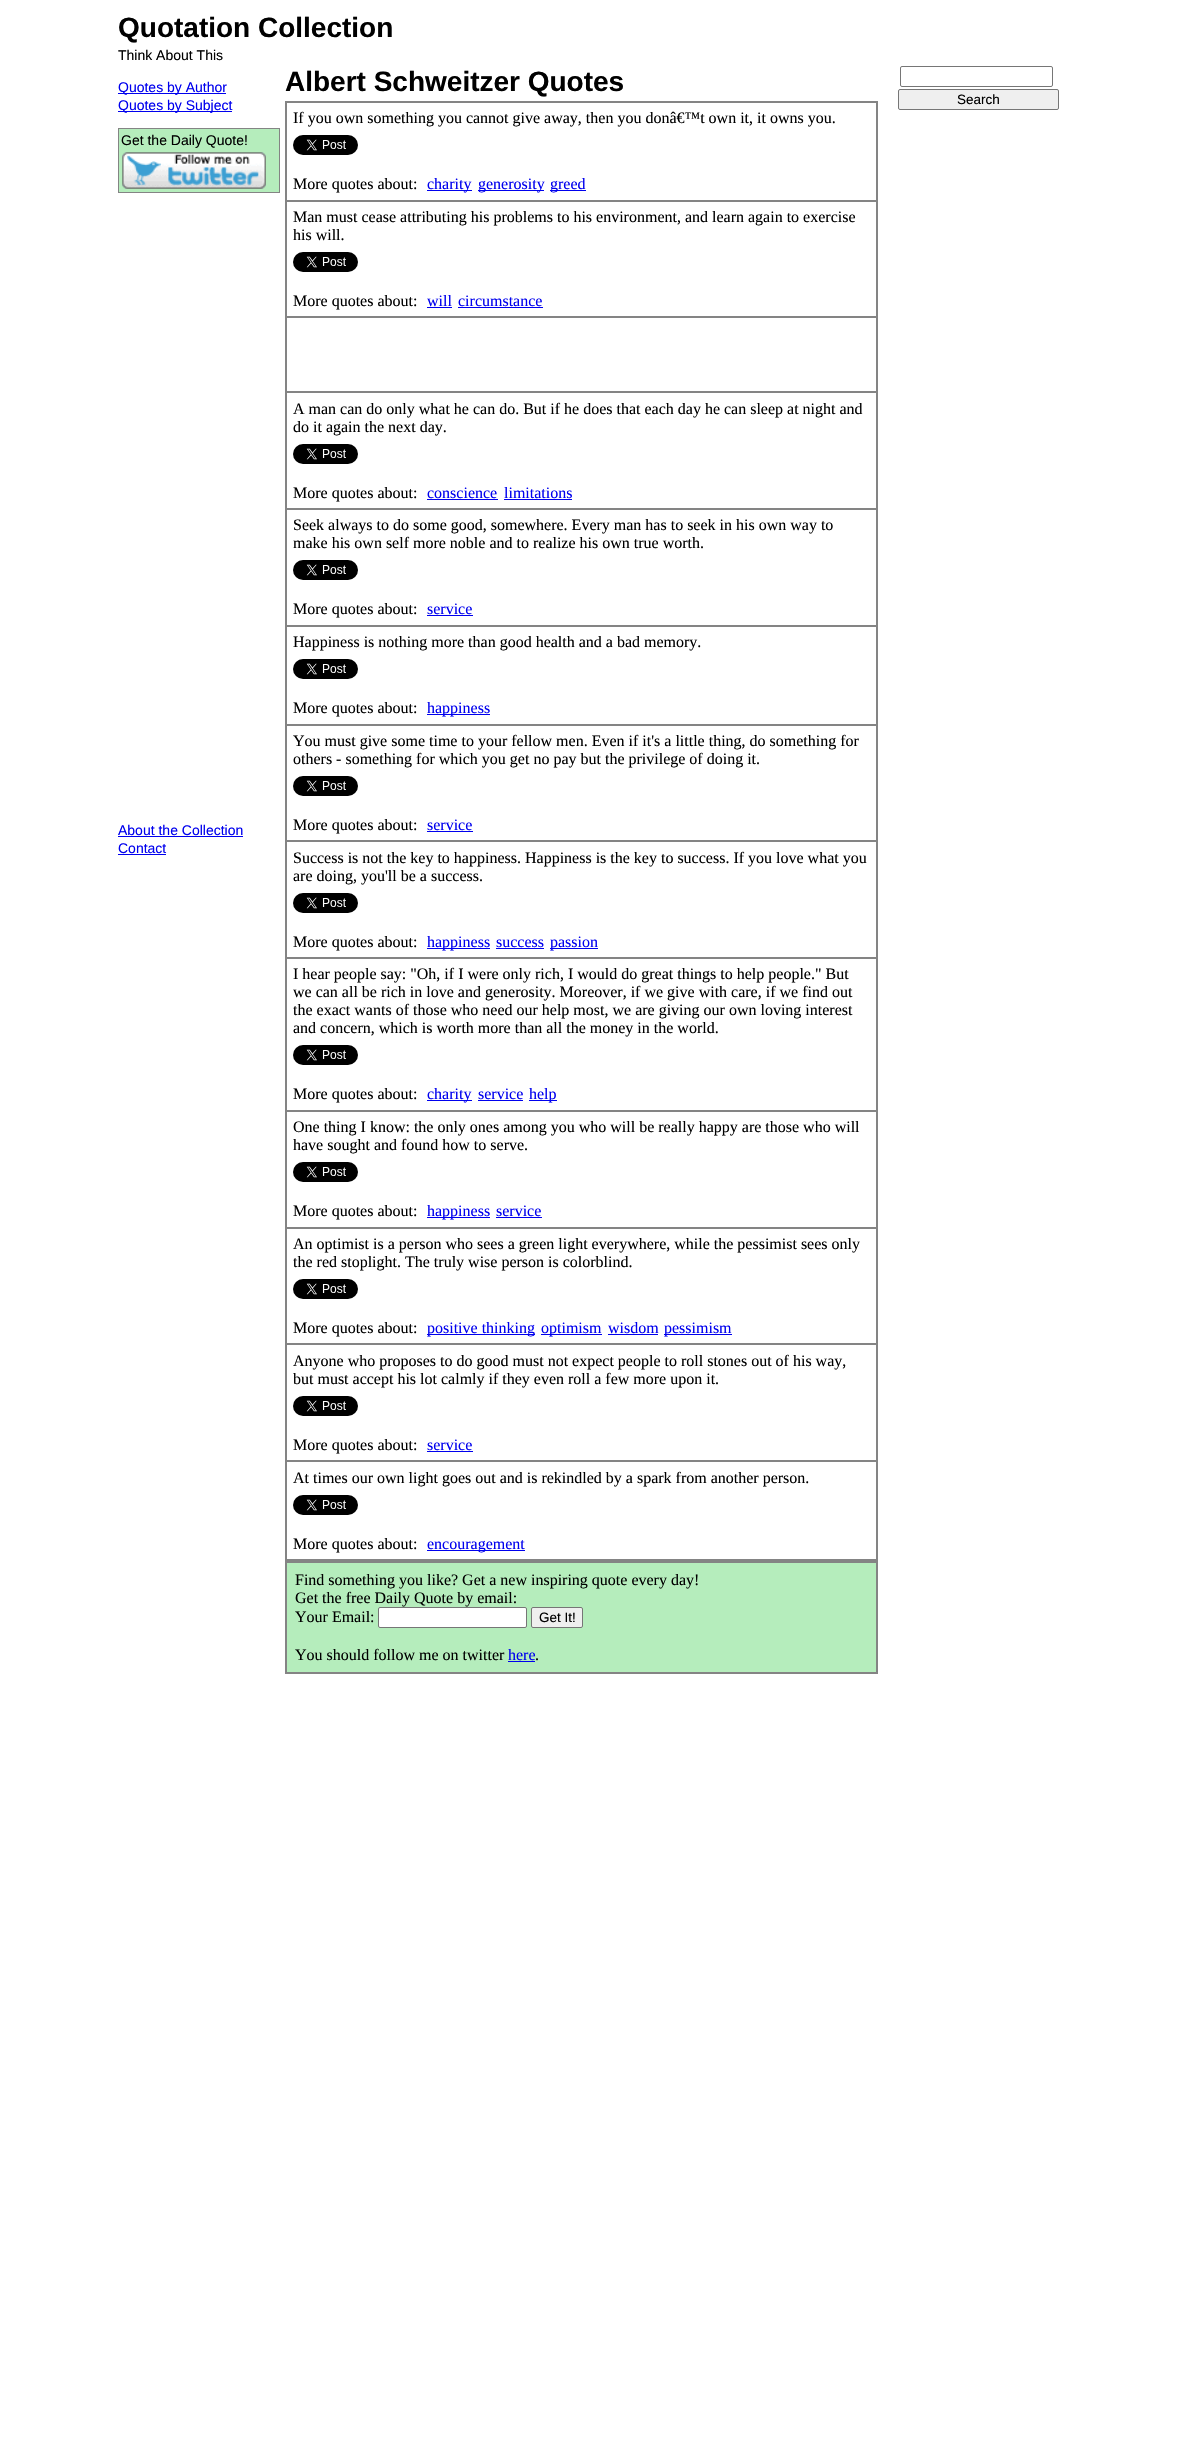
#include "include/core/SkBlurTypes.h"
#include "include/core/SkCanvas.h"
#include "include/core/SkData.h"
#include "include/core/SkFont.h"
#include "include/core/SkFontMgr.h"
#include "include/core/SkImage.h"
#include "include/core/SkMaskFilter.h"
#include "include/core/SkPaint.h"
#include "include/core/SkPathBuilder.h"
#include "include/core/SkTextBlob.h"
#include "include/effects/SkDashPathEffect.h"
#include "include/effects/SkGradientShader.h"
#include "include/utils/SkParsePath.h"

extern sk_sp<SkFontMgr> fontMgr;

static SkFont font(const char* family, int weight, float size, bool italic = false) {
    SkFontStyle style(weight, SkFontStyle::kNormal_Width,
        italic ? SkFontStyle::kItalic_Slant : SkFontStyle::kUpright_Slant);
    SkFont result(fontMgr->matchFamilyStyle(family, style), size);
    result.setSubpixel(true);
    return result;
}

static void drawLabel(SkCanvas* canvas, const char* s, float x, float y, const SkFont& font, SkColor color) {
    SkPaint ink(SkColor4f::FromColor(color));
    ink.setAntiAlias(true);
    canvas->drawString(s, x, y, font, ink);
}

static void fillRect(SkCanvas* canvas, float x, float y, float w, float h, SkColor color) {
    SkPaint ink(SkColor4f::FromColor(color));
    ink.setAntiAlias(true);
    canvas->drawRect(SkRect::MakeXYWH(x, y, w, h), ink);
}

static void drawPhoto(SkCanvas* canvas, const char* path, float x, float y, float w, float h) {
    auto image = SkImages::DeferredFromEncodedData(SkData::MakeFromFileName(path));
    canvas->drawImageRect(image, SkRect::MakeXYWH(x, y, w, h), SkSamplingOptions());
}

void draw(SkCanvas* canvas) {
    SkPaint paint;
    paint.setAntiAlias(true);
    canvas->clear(0xFFFFFFFF);
    SkFont font1 = font("Liberation Sans", 700, 28);
    drawLabel(canvas, "Quotation Collection", 118, 37, font1, 0xFF000000);
    SkFont font2 = font("Liberation Sans", 400, 14);
    drawLabel(canvas, "Think About This", 118, 60, font2, 0xFF000000);
    fillRect(canvas, 118, 93, 108, 1, 0xFF0000EE);
    drawLabel(canvas, "Quotes by Author", 118, 92, font2, 0xFF0000EE);
    fillRect(canvas, 118, 111, 114, 1, 0xFF0000EE);
    drawLabel(canvas, "Quotes by Subject", 118, 110, font2, 0xFF0000EE);
    paint.setColor(0xFFB5EDBC);
    canvas->drawRect(SkRect::MakeXYWH(118.5f, 128.5f, 161, 64), paint);
    paint.setStroke(true);
    paint.setStrokeWidth(1);
    paint.setColor(0xFF848484);
    canvas->drawRect(SkRect::MakeXYWH(118.5f, 128.5f, 161, 64), paint);
    drawLabel(canvas, "Get the Daily Quote!", 121, 145, font2, 0xFF000000);
    drawPhoto(canvas, "assets/img1.png", 122, 152, 144, 37);
    drawLabel(canvas, "About the Collection", 118, 835, font2, 0xFF0000EE);
    fillRect(canvas, 118, 836, 125, 1, 0xFF0000EE);
    drawLabel(canvas, "Contact", 118, 853, font2, 0xFF0000EE);
    fillRect(canvas, 118, 854, 48, 1, 0xFF0000EE);
    drawLabel(canvas, "Albert Schweitzer Quotes", 285, 91, font1, 0xFF000000);
    paint.setStrokeWidth(2);
    canvas->drawRect(SkRect::MakeXYWH(286, 102, 591, 99), paint);
    SkFont font3 = font("Liberation Serif", 400, 16);
    drawLabel(canvas, "If you own something you cannot give away, then you donâ€™t own it, it owns you.", 293, 123, font3, 0xFF000000);
    drawPhoto(canvas, "assets/img2.png", 293, 135, 65, 20);
    drawLabel(canvas, "More quotes about:", 293, 189, font3, 0xFF000000);
    fillRect(canvas, 427, 190, 45, 1, 0xFF0000EE);
    drawLabel(canvas, "charity", 427, 189, font3, 0xFF0000EE);
    fillRect(canvas, 478, 190, 66, 1, 0xFF0000EE);
    drawLabel(canvas, "generosity", 478, 189, font3, 0xFF0000EE);
    fillRect(canvas, 550, 190, 36, 1, 0xFF0000EE);
    drawLabel(canvas, "greed", 550, 189, font3, 0xFF0000EE);
    fillRect(canvas, 876, 202, 2, 1359, 0xFF848484);
    fillRect(canvas, 285, 316, 593, 2, 0xFF848484);
    fillRect(canvas, 285, 202, 2, 116, 0xFF848484);
    drawLabel(canvas, "Man must cease attributing his problems to his environment, and learn again to exercise", 293, 222, font3, 0xFF000000);
    drawLabel(canvas, "his will.", 293, 240, font3, 0xFF000000);
    drawPhoto(canvas, "assets/img2.png", 293, 252, 65, 20);
    drawLabel(canvas, "More quotes about:", 293, 306, font3, 0xFF000000);
    drawLabel(canvas, "will", 427, 306, font3, 0xFF0000EE);
    fillRect(canvas, 427, 307, 25, 1, 0xFF0000EE);
    drawLabel(canvas, "circumstance", 458, 306, font3, 0xFF0000EE);
    fillRect(canvas, 458, 307, 85, 1, 0xFF0000EE);
    fillRect(canvas, 285, 391, 593, 2, 0xFF848484);
    fillRect(canvas, 285, 318, 2, 75, 0xFF848484);
    fillRect(canvas, 285, 508, 593, 2, 0xFF848484);
    fillRect(canvas, 285, 393, 2, 117, 0xFF848484);
    drawLabel(canvas, "A man can do only what he can do. But if he does that each day he can sleep at night and", 293, 414, font3, 0xFF000000);
    drawLabel(canvas, "do it again the next day.", 293, 432, font3, 0xFF000000);
    drawPhoto(canvas, "assets/img2.png", 293, 444, 65, 20);
    drawLabel(canvas, "More quotes about:", 293, 498, font3, 0xFF000000);
    drawLabel(canvas, "conscience", 427, 498, font3, 0xFF0000EE);
    fillRect(canvas, 427, 499, 71, 1, 0xFF0000EE);
    drawLabel(canvas, "limitations", 504, 498, font3, 0xFF0000EE);
    fillRect(canvas, 504, 499, 68, 1, 0xFF0000EE);
    fillRect(canvas, 285, 625, 593, 2, 0xFF848484);
    fillRect(canvas, 285, 510, 2, 117, 0xFF848484);
    drawLabel(canvas, "Seek always to do some good, somewhere. Every man has to seek in his own way to", 293, 530, font3, 0xFF000000);
    drawLabel(canvas, "make his own self more noble and to realize his own true worth.", 293, 548, font3, 0xFF000000);
    drawPhoto(canvas, "assets/img2.png", 293, 560, 65, 20);
    drawLabel(canvas, "More quotes about:", 293, 614, font3, 0xFF000000);
    drawLabel(canvas, "service", 427, 614, font3, 0xFF0000EE);
    fillRect(canvas, 427, 615, 46, 1, 0xFF0000EE);
    fillRect(canvas, 285, 724, 593, 2, 0xFF848484);
    fillRect(canvas, 285, 627, 2, 99, 0xFF848484);
    drawLabel(canvas, "Happiness is nothing more than good health and a bad memory.", 293, 647, font3, 0xFF000000);
    drawPhoto(canvas, "assets/img2.png", 293, 659, 65, 20);
    drawLabel(canvas, "More quotes about:", 293, 713, font3, 0xFF000000);
    fillRect(canvas, 427, 714, 63, 1, 0xFF0000EE);
    drawLabel(canvas, "happiness", 427, 713, font3, 0xFF0000EE);
    fillRect(canvas, 285, 840, 593, 2, 0xFF848484);
    fillRect(canvas, 285, 726, 2, 116, 0xFF848484);
    drawLabel(canvas, "You must give some time to your fellow men. Even if it's a little thing, do something for", 293, 746, font3, 0xFF000000);
    drawLabel(canvas, "others - something for which you get no pay but the privilege of doing it.", 293, 764, font3, 0xFF000000);
    drawPhoto(canvas, "assets/img2.png", 293, 776, 65, 20);
    drawLabel(canvas, "More quotes about:", 293, 830, font3, 0xFF000000);
    drawLabel(canvas, "service", 427, 830, font3, 0xFF0000EE);
    fillRect(canvas, 427, 831, 46, 1, 0xFF0000EE);
    fillRect(canvas, 285, 957, 593, 2, 0xFF848484);
    fillRect(canvas, 285, 842, 2, 117, 0xFF848484);
    drawLabel(canvas, "Success is not the key to happiness. Happiness is the key to success. If you love what you", 293, 863, font3, 0xFF000000);
    drawLabel(canvas, "are doing, you'll be a success.", 293, 881, font3, 0xFF000000);
    drawPhoto(canvas, "assets/img2.png", 293, 893, 65, 20);
    drawLabel(canvas, "More quotes about:", 293, 947, font3, 0xFF000000);
    fillRect(canvas, 427, 948, 63, 1, 0xFF0000EE);
    drawLabel(canvas, "happiness", 427, 947, font3, 0xFF0000EE);
    drawLabel(canvas, "success", 496, 947, font3, 0xFF0000EE);
    fillRect(canvas, 496, 948, 48, 1, 0xFF0000EE);
    fillRect(canvas, 550, 948, 48, 1, 0xFF0000EE);
    drawLabel(canvas, "passion", 550, 947, font3, 0xFF0000EE);
    fillRect(canvas, 285, 1110, 593, 2, 0xFF848484);
    fillRect(canvas, 285, 959, 2, 153, 0xFF848484);
    drawLabel(canvas, "I hear people say: \"Oh, if I were only rich, I would do great things to help people.\" But", 293, 979, font3, 0xFF000000);
    drawLabel(canvas, "we can all be rich in love and generosity. Moreover, if we give with care, if we find out", 293, 997, font3, 0xFF000000);
    drawLabel(canvas, "the exact wants of those who need our help most, we are giving our own loving interest", 293, 1015, font3, 0xFF000000);
    drawLabel(canvas, "and concern, which is worth more than all the money in the world.", 293, 1033, font3, 0xFF000000);
    drawPhoto(canvas, "assets/img2.png", 293, 1045, 65, 20);
    drawLabel(canvas, "More quotes about:", 293, 1099, font3, 0xFF000000);
    fillRect(canvas, 427, 1100, 45, 1, 0xFF0000EE);
    drawLabel(canvas, "charity", 427, 1099, font3, 0xFF0000EE);
    drawLabel(canvas, "service", 478, 1099, font3, 0xFF0000EE);
    fillRect(canvas, 478, 1100, 45, 1, 0xFF0000EE);
    fillRect(canvas, 529, 1100, 28, 1, 0xFF0000EE);
    drawLabel(canvas, "help", 529, 1099, font3, 0xFF0000EE);
    fillRect(canvas, 285, 1227, 593, 2, 0xFF848484);
    fillRect(canvas, 285, 1112, 2, 117, 0xFF848484);
    drawLabel(canvas, "One thing I know: the only ones among you who will be really happy are those who will", 293, 1132, font3, 0xFF000000);
    drawLabel(canvas, "have sought and found how to serve.", 293, 1150, font3, 0xFF000000);
    drawPhoto(canvas, "assets/img2.png", 293, 1162, 65, 20);
    drawLabel(canvas, "More quotes about:", 293, 1216, font3, 0xFF000000);
    fillRect(canvas, 427, 1217, 63, 1, 0xFF0000EE);
    drawLabel(canvas, "happiness", 427, 1216, font3, 0xFF0000EE);
    drawLabel(canvas, "service", 496, 1216, font3, 0xFF0000EE);
    fillRect(canvas, 496, 1217, 46, 1, 0xFF0000EE);
    fillRect(canvas, 285, 1343, 593, 2, 0xFF848484);
    fillRect(canvas, 285, 1229, 2, 116, 0xFF848484);
    drawLabel(canvas, "An optimist is a person who sees a green light everywhere, while the pessimist sees only", 293, 1249, font3, 0xFF000000);
    drawLabel(canvas, "the red stoplight. The truly wise person is colorblind.", 293, 1267, font3, 0xFF000000);
    drawPhoto(canvas, "assets/img2.png", 293, 1279, 65, 20);
    drawLabel(canvas, "More quotes about:", 293, 1333, font3, 0xFF000000);
    fillRect(canvas, 427, 1334, 108, 1, 0xFF0000EE);
    drawLabel(canvas, "positive thinking", 427, 1333, font3, 0xFF0000EE);
    fillRect(canvas, 541, 1334, 61, 1, 0xFF0000EE);
    drawLabel(canvas, "optimism", 541, 1333, font3, 0xFF0000EE);
    drawLabel(canvas, "wisdom", 608, 1333, font3, 0xFF0000EE);
    fillRect(canvas, 608, 1334, 50, 1, 0xFF0000EE);
    fillRect(canvas, 664, 1334, 68, 1, 0xFF0000EE);
    drawLabel(canvas, "pessimism", 664, 1333, font3, 0xFF0000EE);
    fillRect(canvas, 285, 1460, 593, 2, 0xFF848484);
    fillRect(canvas, 285, 1345, 2, 117, 0xFF848484);
    drawLabel(canvas, "Anyone who proposes to do good must not expect people to roll stones out of his way,", 293, 1366, font3, 0xFF000000);
    drawLabel(canvas, "but must accept his lot calmly if they even roll a few more upon it.", 293, 1384, font3, 0xFF000000);
    drawPhoto(canvas, "assets/img2.png", 293, 1396, 65, 20);
    drawLabel(canvas, "More quotes about:", 293, 1450, font3, 0xFF000000);
    drawLabel(canvas, "service", 427, 1450, font3, 0xFF0000EE);
    fillRect(canvas, 427, 1451, 46, 1, 0xFF0000EE);
    fillRect(canvas, 285, 1559, 593, 2, 0xFF848484);
    fillRect(canvas, 285, 1462, 2, 99, 0xFF848484);
    drawLabel(canvas, "At times our own light goes out and is rekindled by a spark from another person.", 293, 1483, font3, 0xFF000000);
    drawPhoto(canvas, "assets/img2.png", 293, 1495, 65, 20);
    drawLabel(canvas, "More quotes about:", 293, 1549, font3, 0xFF000000);
    fillRect(canvas, 427, 1550, 98, 1, 0xFF0000EE);
    drawLabel(canvas, "encouragement", 427, 1549, font3, 0xFF0000EE);
    paint.setStroke(false);
    paint.setColor(0xFFB5EDBC);
    canvas->drawRect(SkRect::MakeXYWH(286, 1562, 591, 111), paint);
    paint.setStroke(true);
    paint.setColor(0xFF848484);
    canvas->drawRect(SkRect::MakeXYWH(286, 1562, 591, 111), paint);
    drawLabel(canvas, "Find something you like? Get a new inspiring quote every day!", 295, 1585, font3, 0xFF000000);
    drawLabel(canvas, "Get the free Daily Quote by email:", 295, 1603, font3, 0xFF000000);
    drawLabel(canvas, "Your Email:", 295, 1622, font3, 0xFF000000);
    paint.setStroke(false);
    paint.setColor(0xFFFFFFFF);
    canvas->drawRoundRect(SkRect::MakeXYWH(378.5f, 1607.5f, 148, 20), 1.5f, 1.5f, paint);
    paint.setStroke(true);
    paint.setStrokeWidth(1);
    paint.setColor(0xFF767676);
    canvas->drawRoundRect(SkRect::MakeXYWH(378.5f, 1607.5f, 148, 20), 1.5f, 1.5f, paint);
    paint.setStroke(false);
    paint.setColor(0xFFEFEFEF);
    canvas->drawRoundRect(SkRect::MakeXYWH(531.5f, 1607.5f, 51, 20), 1.5f, 1.5f, paint);
    paint.setStroke(true);
    paint.setColor(0xFF767676);
    canvas->drawRoundRect(SkRect::MakeXYWH(531.5f, 1607.5f, 51, 20), 1.5f, 1.5f, paint);
    SkFont font4 = font("Liberation Sans", 400, 13.5f);
    drawLabel(canvas, "Get It!", 539, 1622, font4, 0xFF000000);
    drawLabel(canvas, "You should follow me on twitter", 295, 1660, font3, 0xFF000000);
    drawLabel(canvas, "here", 508, 1660, font3, 0xFF0000EE);
    fillRect(canvas, 508, 1661, 27, 1, 0xFF0000EE);
    drawLabel(canvas, ".", 535, 1660, font3, 0xFF000000);
    canvas->drawRoundRect(SkRect::MakeXYWH(900.5f, 66.5f, 152, 20), 1.5f, 1.5f, paint);
    paint.setStroke(false);
    paint.setColor(0xFFEFEFEF);
    canvas->drawRoundRect(SkRect::MakeXYWH(898.5f, 89.5f, 160, 20), 1.5f, 1.5f, paint);
    paint.setStroke(true);
    paint.setColor(0xFF767676);
    canvas->drawRoundRect(SkRect::MakeXYWH(898.5f, 89.5f, 160, 20), 1.5f, 1.5f, paint);
    drawLabel(canvas, "Search", 957, 104, font4, 0xFF000000);
}
